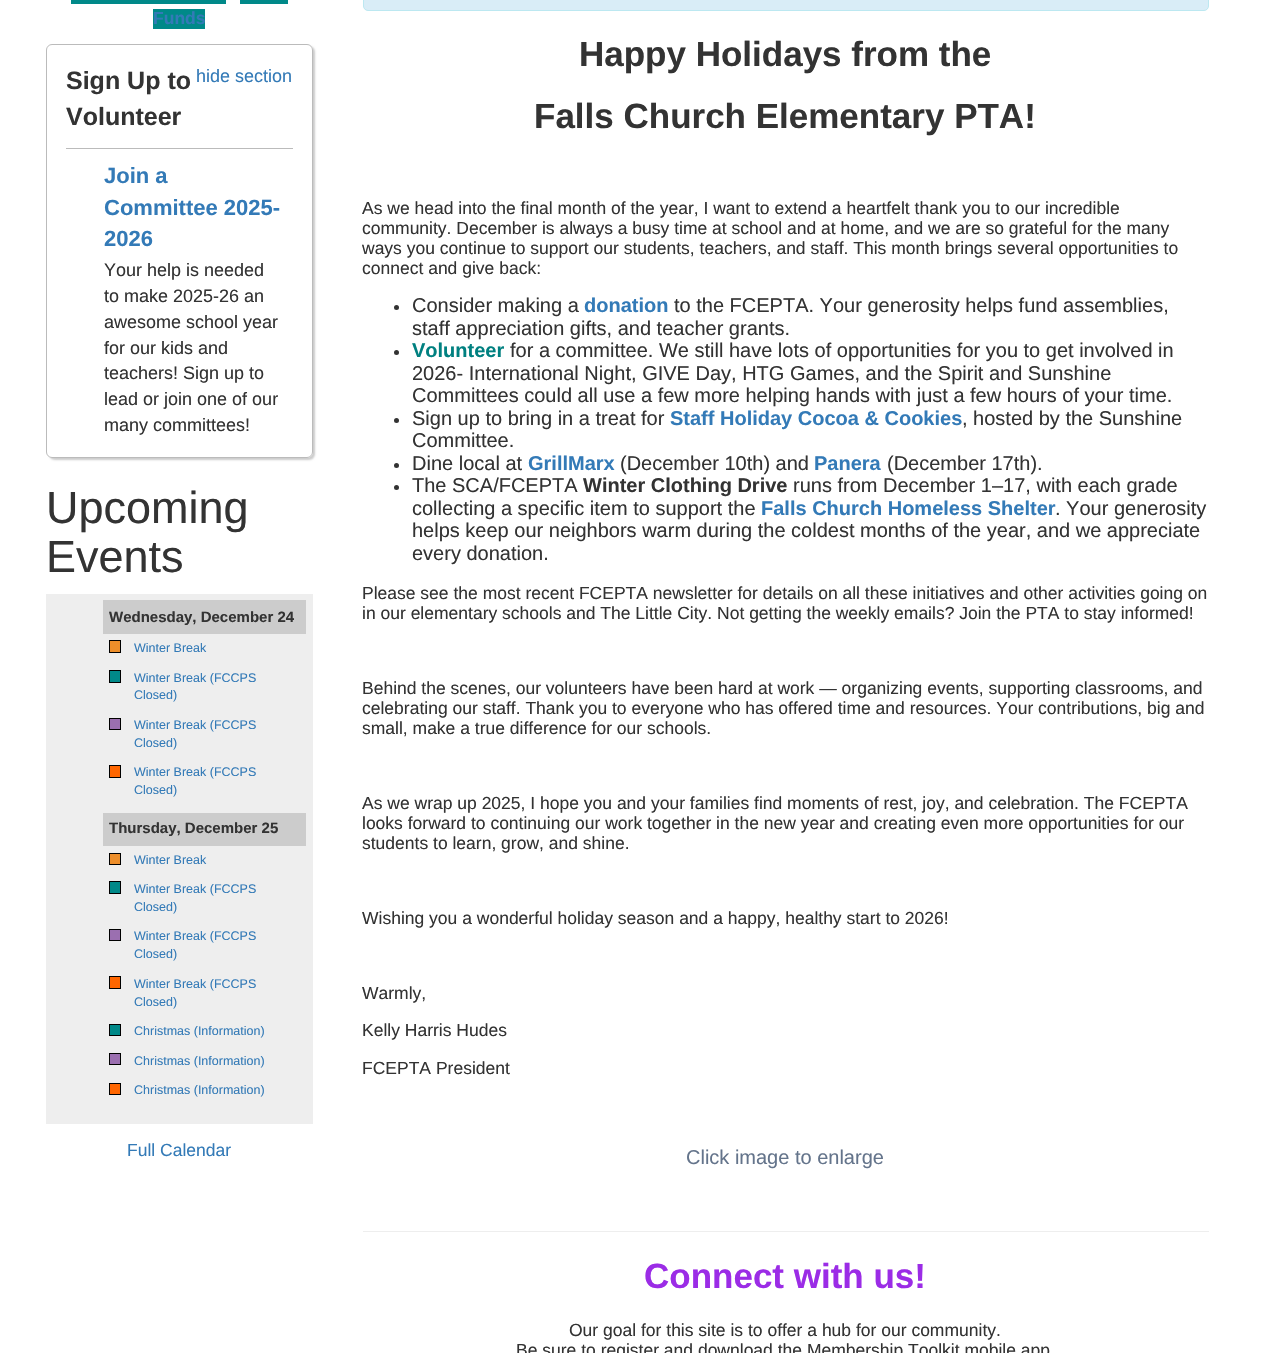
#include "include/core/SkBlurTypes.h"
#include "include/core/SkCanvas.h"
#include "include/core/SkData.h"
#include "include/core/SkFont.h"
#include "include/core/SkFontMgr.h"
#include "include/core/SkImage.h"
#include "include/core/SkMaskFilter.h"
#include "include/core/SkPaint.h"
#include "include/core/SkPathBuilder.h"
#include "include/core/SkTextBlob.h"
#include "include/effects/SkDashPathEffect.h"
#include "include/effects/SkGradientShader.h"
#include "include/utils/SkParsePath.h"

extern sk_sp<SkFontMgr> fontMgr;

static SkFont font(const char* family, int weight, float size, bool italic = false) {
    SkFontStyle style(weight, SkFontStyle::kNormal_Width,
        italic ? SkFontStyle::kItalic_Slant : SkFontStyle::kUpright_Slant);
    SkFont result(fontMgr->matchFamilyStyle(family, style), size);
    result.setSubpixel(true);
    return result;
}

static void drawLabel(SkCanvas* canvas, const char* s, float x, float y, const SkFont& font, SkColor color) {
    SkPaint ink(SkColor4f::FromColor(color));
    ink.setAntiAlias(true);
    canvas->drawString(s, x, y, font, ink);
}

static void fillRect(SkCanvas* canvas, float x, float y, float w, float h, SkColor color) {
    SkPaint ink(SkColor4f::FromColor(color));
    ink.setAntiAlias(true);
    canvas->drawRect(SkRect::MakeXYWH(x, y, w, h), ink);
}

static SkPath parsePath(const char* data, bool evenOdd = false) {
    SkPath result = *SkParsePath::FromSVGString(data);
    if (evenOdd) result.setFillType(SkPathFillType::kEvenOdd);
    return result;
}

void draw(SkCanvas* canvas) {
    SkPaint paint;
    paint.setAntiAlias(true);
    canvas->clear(0xFFFFFFFF);
    fillRect(canvas, 71, 0, 155, 4, 0xFF008989);
    fillRect(canvas, 153, 9, 52, 20, 0xFF008989);
    SkFont font1 = font("Liberation Sans", 700, 17.5f);
    drawLabel(canvas, "Funds", 153, 24, font1, 0xFF337AB7);
    fillRect(canvas, 240, 0, 48, 4, 0xFF008989);
    canvas->save();
    canvas->clipPath(parsePath("M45 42H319V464H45ZM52 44H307C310.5 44 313 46.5 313 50V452C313 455.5 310.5 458 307 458H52C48.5 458 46 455.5 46 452V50C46 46.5 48.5 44 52 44Z", true), true);
    paint.setColor(0x33000000);
    paint.setMaskFilter(SkMaskFilter::MakeBlur(kNormal_SkBlurStyle, 1));
    canvas->drawRoundRect(SkRect::MakeXYWH(49, 46, 266, 414), 6, 6, paint);
    paint.setMaskFilter(nullptr);
    canvas->restore();
    paint.setStroke(true);
    paint.setStrokeWidth(1);
    paint.setColor(0xFFBBBBBB);
    canvas->drawRoundRect(SkRect::MakeXYWH(46.5f, 44.5f, 266, 413), 5.5f, 5.5f, paint);
    SkFont font2 = font("Liberation Sans", 700, 25);
    drawLabel(canvas, "Sign Up to", 66, 89, font2, 0xFF333333);
    SkFont font3 = font("Liberation Sans", 400, 18);
    drawLabel(canvas, "hide section", 196, 82, font3, 0xFF337AB7);
    drawLabel(canvas, "Volunteer", 66, 125, font2, 0xFF333333);
    fillRect(canvas, 66, 148, 227, 1, 0xFFBBBBBB);
    SkFont font4 = font("Liberation Sans", 700, 22);
    drawLabel(canvas, "Join a", 104, 183, font4, 0xFF337AB7);
    drawLabel(canvas, "Committee 2025-", 104, 215, font4, 0xFF337AB7);
    drawLabel(canvas, "2026", 104, 246, font4, 0xFF337AB7);
    drawLabel(canvas, "Your help is needed", 104, 276, font3, 0xFF333333);
    drawLabel(canvas, "to make 2025-26 an", 104, 302, font3, 0xFF333333);
    drawLabel(canvas, "awesome school year", 104, 328, font3, 0xFF333333);
    drawLabel(canvas, "for our kids and", 104, 354, font3, 0xFF333333);
    drawLabel(canvas, "teachers! Sign up to", 104, 379, font3, 0xFF333333);
    drawLabel(canvas, "lead or join one of our", 104, 405, font3, 0xFF333333);
    drawLabel(canvas, "many committees!", 104, 431, font3, 0xFF333333);
    SkFont font5 = font("Liberation Sans", 400, 45);
    drawLabel(canvas, "Upcoming", 46, 523, font5, 0xFF333333);
    drawLabel(canvas, "Events", 46, 572, font5, 0xFF333333);
    fillRect(canvas, 46, 594, 267, 530, 0xFFEEEEEE);
    fillRect(canvas, 103, 600, 203, 34, 0xFFCCCCCC);
    SkFont font6 = font("Liberation Sans", 700, 15);
    drawLabel(canvas, "Wednesday, December 24", 109, 622, font6, 0xFF333333);
    paint.setStroke(false);
    paint.setColor(0xFFED8E2A);
    canvas->drawRect(SkRect::MakeXYWH(109.5f, 640.5f, 11, 12), paint);
    paint.setStroke(true);
    paint.setColor(0xFF000000);
    canvas->drawRect(SkRect::MakeXYWH(109.5f, 640.5f, 11, 12), paint);
    SkFont font7 = font("Liberation Sans", 400, 12.5f);
    drawLabel(canvas, "Winter Break", 134, 652, font7, 0xFF337AB7);
    paint.setStroke(false);
    paint.setColor(0xFF008989);
    canvas->drawRect(SkRect::MakeXYWH(109.5f, 670.5f, 11, 12), paint);
    paint.setStroke(true);
    paint.setColor(0xFF000000);
    canvas->drawRect(SkRect::MakeXYWH(109.5f, 670.5f, 11, 12), paint);
    drawLabel(canvas, "Winter Break (FCCPS", 134, 682, font7, 0xFF337AB7);
    drawLabel(canvas, "Closed)", 134, 699, font7, 0xFF337AB7);
    paint.setStroke(false);
    paint.setColor(0xFF9B6FB0);
    canvas->drawRect(SkRect::MakeXYWH(109.5f, 718.5f, 11, 11), paint);
    paint.setStroke(true);
    paint.setColor(0xFF000000);
    canvas->drawRect(SkRect::MakeXYWH(109.5f, 718.5f, 11, 11), paint);
    drawLabel(canvas, "Winter Break (FCCPS", 134, 729, font7, 0xFF337AB7);
    drawLabel(canvas, "Closed)", 134, 747, font7, 0xFF337AB7);
    paint.setStroke(false);
    paint.setColor(0xFFFF6600);
    canvas->drawRect(SkRect::MakeXYWH(109.5f, 765.5f, 11, 12), paint);
    paint.setStroke(true);
    paint.setColor(0xFF000000);
    canvas->drawRect(SkRect::MakeXYWH(109.5f, 765.5f, 11, 12), paint);
    drawLabel(canvas, "Winter Break (FCCPS", 134, 776, font7, 0xFF337AB7);
    drawLabel(canvas, "Closed)", 134, 794, font7, 0xFF337AB7);
    fillRect(canvas, 103, 813, 203, 33, 0xFFCCCCCC);
    drawLabel(canvas, "Thursday, December 25", 109, 833, font6, 0xFF333333);
    paint.setStroke(false);
    paint.setColor(0xFFED8E2A);
    canvas->drawRect(SkRect::MakeXYWH(109.5f, 853.5f, 11, 11), paint);
    paint.setStroke(true);
    paint.setColor(0xFF000000);
    canvas->drawRect(SkRect::MakeXYWH(109.5f, 853.5f, 11, 11), paint);
    drawLabel(canvas, "Winter Break", 134, 864, font7, 0xFF337AB7);
    paint.setStroke(false);
    paint.setColor(0xFF008989);
    canvas->drawRect(SkRect::MakeXYWH(109.5f, 881.5f, 11, 12), paint);
    paint.setStroke(true);
    paint.setColor(0xFF000000);
    canvas->drawRect(SkRect::MakeXYWH(109.5f, 881.5f, 11, 12), paint);
    drawLabel(canvas, "Winter Break (FCCPS", 134, 893, font7, 0xFF337AB7);
    drawLabel(canvas, "Closed)", 134, 911, font7, 0xFF337AB7);
    paint.setStroke(false);
    paint.setColor(0xFF9B6FB0);
    canvas->drawRect(SkRect::MakeXYWH(109.5f, 929.5f, 11, 11), paint);
    paint.setStroke(true);
    paint.setColor(0xFF000000);
    canvas->drawRect(SkRect::MakeXYWH(109.5f, 929.5f, 11, 11), paint);
    drawLabel(canvas, "Winter Break (FCCPS", 134, 940, font7, 0xFF337AB7);
    drawLabel(canvas, "Closed)", 134, 958, font7, 0xFF337AB7);
    paint.setStroke(false);
    paint.setColor(0xFFFF6600);
    canvas->drawRect(SkRect::MakeXYWH(109.5f, 976.5f, 11, 12), paint);
    paint.setStroke(true);
    paint.setColor(0xFF000000);
    canvas->drawRect(SkRect::MakeXYWH(109.5f, 976.5f, 11, 12), paint);
    drawLabel(canvas, "Winter Break (FCCPS", 134, 988, font7, 0xFF337AB7);
    drawLabel(canvas, "Closed)", 134, 1006, font7, 0xFF337AB7);
    paint.setStroke(false);
    paint.setColor(0xFF008989);
    canvas->drawRect(SkRect::MakeXYWH(109.5f, 1024.5f, 11, 11), paint);
    paint.setStroke(true);
    paint.setColor(0xFF000000);
    canvas->drawRect(SkRect::MakeXYWH(109.5f, 1024.5f, 11, 11), paint);
    drawLabel(canvas, "Christmas (Information)", 134, 1035, font7, 0xFF337AB7);
    paint.setStroke(false);
    paint.setColor(0xFF9B6FB0);
    canvas->drawRect(SkRect::MakeXYWH(109.5f, 1053.5f, 11, 11), paint);
    paint.setStroke(true);
    paint.setColor(0xFF000000);
    canvas->drawRect(SkRect::MakeXYWH(109.5f, 1053.5f, 11, 11), paint);
    drawLabel(canvas, "Christmas (Information)", 134, 1065, font7, 0xFF337AB7);
    paint.setStroke(false);
    paint.setColor(0xFFFF6600);
    canvas->drawRect(SkRect::MakeXYWH(109.5f, 1083.5f, 11, 11), paint);
    paint.setStroke(true);
    paint.setColor(0xFF000000);
    canvas->drawRect(SkRect::MakeXYWH(109.5f, 1083.5f, 11, 11), paint);
    drawLabel(canvas, "Christmas (Information)", 134, 1094, font7, 0xFF337AB7);
    SkFont font8 = font("Liberation Sans", 400, 17.5f);
    drawLabel(canvas, "Full Calendar", 127, 1156, font8, 0xFF337AB7);
    paint.setStroke(false);
    paint.setColor(0xFFD9EDF7);
    canvas->drawRoundRect(SkRect::MakeXYWH(363.5f, -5.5f, 845, 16), 4.5f, 4.5f, paint);
    paint.setStroke(true);
    paint.setColor(0xFFBCE8F1);
    canvas->drawRoundRect(SkRect::MakeXYWH(363.5f, -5.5f, 845, 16), 4.5f, 4.5f, paint);
    SkFont font9 = font("Liberation Sans", 700, 35);
    drawLabel(canvas, "Happy Holidays from the", 579, 66, font9, 0xFF333333);
    drawLabel(canvas, "Falls Church Elementary PTA!", 534, 128, font9, 0xFF333333);
    drawLabel(canvas, "As we head into the final month of the year, I want to extend a heartfelt thank you to our incredible", 362, 214, font8, 0xFF333333);
    drawLabel(canvas, "community. December is always a busy time at school and at home, and we are so grateful for the many", 362, 234, font8, 0xFF333333);
    drawLabel(canvas, "ways you continue to support our students, teachers, and staff. This month brings several opportunities to", 362, 254, font8, 0xFF333333);
    drawLabel(canvas, "connect and give back:", 362, 274, font8, 0xFF333333);
    paint.setStroke(false);
    paint.setColor(0xFF333333);
    canvas->drawCircle(396.5f, 307.5f, 2.5f, paint);
    SkFont font10 = font("Liberation Sans", 400, 20);
    drawLabel(canvas, "Consider making a", 412, 312, font10, 0xFF333333);
    SkFont font11 = font("Liberation Sans", 700, 20);
    drawLabel(canvas, "donation", 584, 312, font11, 0xFF337AB7);
    drawLabel(canvas, "to the FCEPTA. Your generosity helps fund assemblies,", 674, 312, font10, 0xFF333333);
    drawLabel(canvas, "staff appreciation gifts, and teacher grants.", 412, 335, font10, 0xFF333333);
    canvas->drawCircle(396.5f, 352.5f, 2.5f, paint);
    drawLabel(canvas, "Volunteer", 412, 357, font11, 0xFF008080);
    drawLabel(canvas, "for a committee. We still have lots of opportunities for you to get involved in", 510, 357, font10, 0xFF333333);
    drawLabel(canvas, "2026- International Night, GIVE Day, HTG Games, and the Spirit and Sunshine", 412, 380, font10, 0xFF333333);
    drawLabel(canvas, "Committees could all use a few more helping hands with just a few hours of your time.", 412, 402, font10, 0xFF333333);
    canvas->drawCircle(396.5f, 420.5f, 2.5f, paint);
    drawLabel(canvas, "Sign up to bring in a treat for", 412, 425, font10, 0xFF333333);
    drawLabel(canvas, "Staff Holiday Cocoa & Cookies", 670, 425, font11, 0xFF337AB7);
    drawLabel(canvas, ", hosted by the Sunshine", 962, 425, font10, 0xFF333333);
    drawLabel(canvas, "Committee.", 412, 447, font10, 0xFF333333);
    canvas->drawCircle(396.5f, 465.5f, 2.5f, paint);
    drawLabel(canvas, "Dine local at", 412, 470, font10, 0xFF333333);
    drawLabel(canvas, "GrillMarx", 528, 470, font11, 0xFF337AB7);
    drawLabel(canvas, "(December 10th) and", 620, 470, font10, 0xFF333333);
    drawLabel(canvas, "Panera", 814, 470, font11, 0xFF337AB7);
    drawLabel(canvas, "(December 17th).", 887, 470, font10, 0xFF333333);
    canvas->drawCircle(396.5f, 487.5f, 2.5f, paint);
    drawLabel(canvas, "The SCA/FCEPTA", 412, 492, font10, 0xFF333333);
    drawLabel(canvas, "Winter Clothing Drive", 583, 492, font11, 0xFF333333);
    drawLabel(canvas, "runs from December 1–17, with each grade", 793, 492, font10, 0xFF333333);
    drawLabel(canvas, "collecting a specific item to support the", 412, 515, font10, 0xFF333333);
    drawLabel(canvas, "Falls Church Homeless Shelter", 761, 515, font11, 0xFF337AB7);
    drawLabel(canvas, ". Your generosity", 1055, 515, font10, 0xFF333333);
    drawLabel(canvas, "helps keep our neighbors warm during the coldest months of the year, and we appreciate", 412, 537, font10, 0xFF333333);
    drawLabel(canvas, "every donation.", 412, 560, font10, 0xFF333333);
    drawLabel(canvas, "Please see the most recent FCEPTA newsletter for details on all these initiatives and other activities going on", 362, 599, font8, 0xFF333333);
    drawLabel(canvas, "in our elementary schools and The Little City. Not getting the weekly emails? Join the PTA to stay informed!", 362, 619, font8, 0xFF333333);
    drawLabel(canvas, "Behind the scenes, our volunteers have been hard at work — organizing events, supporting classrooms, and", 362, 694, font8, 0xFF333333);
    drawLabel(canvas, "celebrating our staff. Thank you to everyone who has offered time and resources. Your contributions, big and", 362, 714, font8, 0xFF333333);
    drawLabel(canvas, "small, make a true difference for our schools.", 362, 734, font8, 0xFF333333);
    drawLabel(canvas, "As we wrap up 2025, I hope you and your families find moments of rest, joy, and celebration. The FCEPTA", 362, 809, font8, 0xFF333333);
    drawLabel(canvas, "looks forward to continuing our work together in the new year and creating even more opportunities for our", 362, 829, font8, 0xFF333333);
    drawLabel(canvas, "students to learn, grow, and shine.", 362, 849, font8, 0xFF333333);
    drawLabel(canvas, "Wishing you a wonderful holiday season and a happy, healthy start to 2026!", 362, 924, font8, 0xFF333333);
    drawLabel(canvas, "Warmly,", 362, 999, font8, 0xFF333333);
    drawLabel(canvas, "Kelly Harris Hudes", 362, 1036, font8, 0xFF333333);
    drawLabel(canvas, "FCEPTA President", 362, 1074, font8, 0xFF333333);
    drawLabel(canvas, "Click image to enlarge", 686, 1164, font10, 0xFF64748B);
    fillRect(canvas, 363, 1231, 846, 1, 0xFFEEEEEE);
    drawLabel(canvas, "Connect with us!", 644, 1288, font9, 0xFF9B2CE6);
    drawLabel(canvas, "Our goal for this site is to offer a hub for our community.", 569, 1336, font8, 0xFF333333);
    drawLabel(canvas, "Be sure to register and download the Membership Toolkit mobile app", 516, 1356, font8, 0xFF333333);
}
